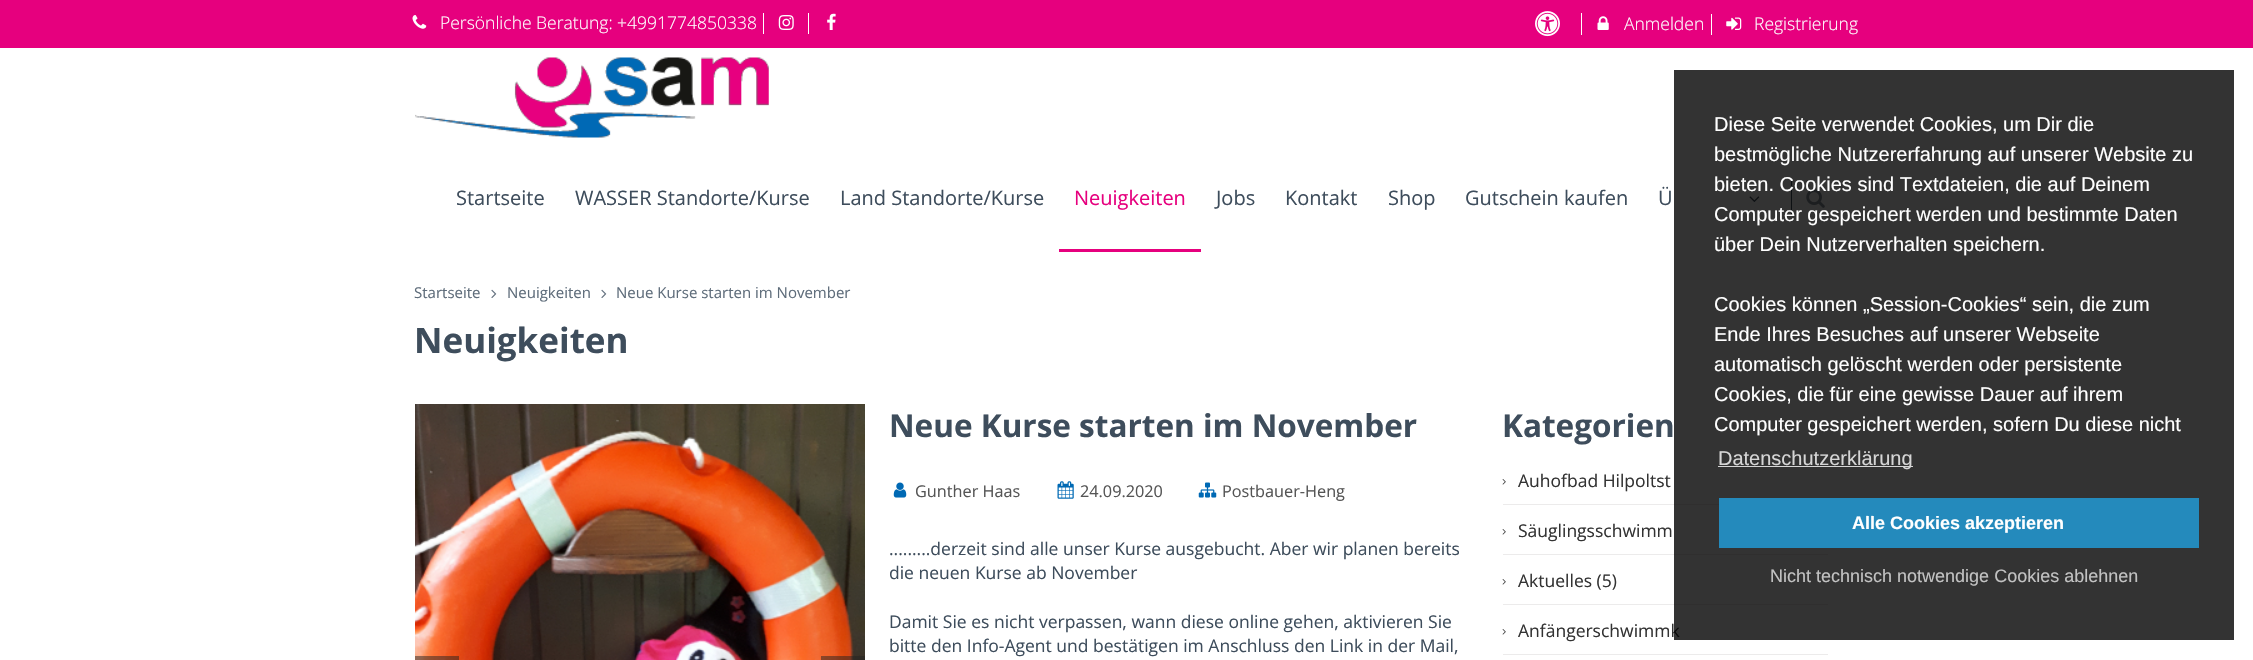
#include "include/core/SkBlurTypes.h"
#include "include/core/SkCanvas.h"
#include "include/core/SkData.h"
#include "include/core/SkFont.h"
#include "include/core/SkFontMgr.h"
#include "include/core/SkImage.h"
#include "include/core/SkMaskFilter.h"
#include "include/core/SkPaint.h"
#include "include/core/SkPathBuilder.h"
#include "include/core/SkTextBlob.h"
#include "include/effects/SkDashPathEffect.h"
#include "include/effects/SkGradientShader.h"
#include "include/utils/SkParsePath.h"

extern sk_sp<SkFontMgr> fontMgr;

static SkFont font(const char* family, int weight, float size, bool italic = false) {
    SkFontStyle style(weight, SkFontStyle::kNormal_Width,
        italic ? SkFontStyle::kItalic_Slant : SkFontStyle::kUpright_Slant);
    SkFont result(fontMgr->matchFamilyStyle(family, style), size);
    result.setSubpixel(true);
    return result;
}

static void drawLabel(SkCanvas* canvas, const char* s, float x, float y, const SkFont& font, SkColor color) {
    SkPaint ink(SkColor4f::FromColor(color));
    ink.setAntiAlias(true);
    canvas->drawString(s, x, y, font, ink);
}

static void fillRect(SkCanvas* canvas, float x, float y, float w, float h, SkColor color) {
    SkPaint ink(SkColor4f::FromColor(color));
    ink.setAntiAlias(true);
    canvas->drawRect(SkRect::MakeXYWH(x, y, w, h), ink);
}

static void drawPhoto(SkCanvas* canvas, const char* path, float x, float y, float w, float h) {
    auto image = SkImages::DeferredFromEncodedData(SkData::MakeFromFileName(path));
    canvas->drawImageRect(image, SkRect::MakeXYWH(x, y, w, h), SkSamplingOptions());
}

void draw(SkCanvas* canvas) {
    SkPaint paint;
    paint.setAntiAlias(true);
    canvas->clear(0xFFFFFFFF);
    fillRect(canvas, 0, 0, 2253, 48, 0xFFE6007E);
    fillRect(canvas, 763, 13, 1, 21, 0xFFFFFFFF);
    drawPhoto(canvas, "assets/img1.png", 412, 15, 15, 14);
    SkFont font1 = font("Open Sans", 300, 17.5f);
    drawLabel(canvas, "Persönliche Beratung: +4991774850338", 440, 29, font1, 0xFFFFFFFF);
    fillRect(canvas, 808, 13, 1, 21, 0xFFFFFFFF);
    drawPhoto(canvas, "assets/img2.png", 778, 15, 16, 15);
    drawPhoto(canvas, "assets/img3.png", 827, 13, 9, 17);
    fillRect(canvas, 1581, 13, 1, 22, 0xFFFFFFFF);
    drawPhoto(canvas, "assets/img4.png", 1535, 11, 25, 26);
    fillRect(canvas, 1711, 14, 1, 21, 0xFFFFFFFF);
    drawPhoto(canvas, "assets/img5.png", 1597, 16, 12, 14);
    drawLabel(canvas, "Anmelden", 1624, 30, font1, 0xFFFFFFFF);
    drawPhoto(canvas, "assets/img6.png", 1726, 17, 16, 13);
    drawLabel(canvas, "Registrierung", 1754, 30, font1, 0xFFFFFFFF);
    drawPhoto(canvas, "assets/img7.png", 415, 57, 354, 81);
    SkFont font2 = font("Open Sans", 400, 20);
    drawLabel(canvas, "Startseite", 456, 205, font2, 0xFF3E4D5C);
    drawLabel(canvas, "WASSER Standorte/Kurse", 575, 205, font2, 0xFF3E4D5C);
    drawLabel(canvas, "Land Standorte/Kurse", 840, 205, font2, 0xFF3E4D5C);
    fillRect(canvas, 1059, 249, 142, 3, 0xFFE6007E);
    drawLabel(canvas, "Neuigkeiten", 1074, 205, font2, 0xFFE6007E);
    drawLabel(canvas, "Jobs", 1216, 205, font2, 0xFF3E4D5C);
    drawLabel(canvas, "Kontakt", 1285, 205, font2, 0xFF3E4D5C);
    drawLabel(canvas, "Shop", 1388, 205, font2, 0xFF3E4D5C);
    drawLabel(canvas, "Gutschein kaufen", 1465, 205, font2, 0xFF3E4D5C);
    drawLabel(canvas, "Ü", 1658, 205, font2, 0xFF3E4D5C);
    drawPhoto(canvas, "assets/img8.png", 1749, 196, 11, 6);
    fillRect(canvas, 1791, 181, 1, 33, 0xFF3E4D5C);
    drawPhoto(canvas, "assets/img9.png", 1806, 189, 19, 19);
    fillRect(canvas, 1503, 504, 216, 1, 0xFFECEBEB);
    fillRect(canvas, 1503, 554, 325, 1, 0xFFECEBEB);
    fillRect(canvas, 1503, 604, 325, 1, 0xFFECEBEB);
    SkFont font3 = font("Open Sans", 400, 17.5f);
    drawLabel(canvas, "Anfängerschwimmk", 1518, 637, font3, 0xFF333333);
    fillRect(canvas, 1674, 70, 560, 570, 0xCC000000);
    SkFont font4 = font("Liberation Sans", 400, 20);
    drawLabel(canvas, "Diese Seite verwendet Cookies, um Dir die", 1714, 131, font4, 0xFFFFFFFF);
    drawLabel(canvas, "bestmögliche Nutzererfahrung auf unserer Website zu", 1714, 161, font4, 0xFFFFFFFF);
    drawLabel(canvas, "bieten. Cookies sind Textdateien, die auf Deinem", 1714, 191, font4, 0xFFFFFFFF);
    drawLabel(canvas, "Computer gespeichert werden und bestimmte Daten", 1714, 221, font4, 0xFFFFFFFF);
    drawLabel(canvas, "über Dein Nutzerverhalten speichern.", 1714, 251, font4, 0xFFFFFFFF);
    drawLabel(canvas, "Cookies können „Session-Cookies“ sein, die zum", 1714, 311, font4, 0xFFFFFFFF);
    drawLabel(canvas, "Ende Ihres Besuches auf unserer Webseite", 1714, 341, font4, 0xFFFFFFFF);
    drawLabel(canvas, "automatisch gelöscht werden oder persistente", 1714, 371, font4, 0xFFFFFFFF);
    drawLabel(canvas, "Cookies, die für eine gewisse Dauer auf ihrem", 1714, 401, font4, 0xFFFFFFFF);
    drawLabel(canvas, "Computer gespeichert werden, sofern Du diese nicht", 1714, 431, font4, 0xFFFFFFFF);
    fillRect(canvas, 1718, 466, 195, 1, 0xFFD6D6D6);
    drawLabel(canvas, "Datenschutzerklärung", 1718, 465, font4, 0xFFD6D6D6);
    fillRect(canvas, 1719, 498, 480, 50, 0xFF248ABC);
    SkFont font5 = font("Liberation Sans", 700, 18);
    drawLabel(canvas, "Alle Cookies akzeptieren", 1852, 529, font5, 0xFFFFFFFF);
    SkFont font6 = font("Liberation Sans", 400, 18);
    drawLabel(canvas, "Nicht technisch notwendige Cookies ablehnen", 1770, 582, font6, 0xFFC2C2C2);
    SkFont font7 = font("Open Sans", 400, 15);
    drawLabel(canvas, "Startseite", 414, 298, font7, 0xFF5F6D7B);
    drawPhoto(canvas, "assets/img10.png", 491, 289, 6, 9);
    drawLabel(canvas, "Neuigkeiten", 507, 298, font7, 0xFF5F6D7B);
    drawPhoto(canvas, "assets/img10.png", 601, 289, 6, 9);
    drawLabel(canvas, "Neue Kurse starten im November", 616, 298, font7, 0xFF5F6D7B);
    SkFont font8 = font("Open Sans", 700, 35);
    drawLabel(canvas, "Neuigkeiten", 414, 353, font8, 0xFF3E4D5C);
    drawPhoto(canvas, "assets/img11.png", 415, 404, 450, 256);
    fillRect(canvas, 415, 656, 44, 4, 0x80222222);
    fillRect(canvas, 821, 656, 44, 4, 0x80222222);
    SkFont font9 = font("Open Sans", 700, 31.5f);
    drawLabel(canvas, "Neue Kurse starten im November", 889, 437, font9, 0xFF3E4D5C);
    drawPhoto(canvas, "assets/img12.png", 893, 482, 14, 16);
    SkFont font10 = font("Open Sans", 400, 16.25f);
    drawLabel(canvas, "Gunther Haas", 915, 497, font10, 0xFF555555);
    drawPhoto(canvas, "assets/img13.png", 1057, 481, 17, 18);
    drawLabel(canvas, "24.09.2020", 1080, 497, font10, 0xFF555555);
    drawPhoto(canvas, "assets/img14.png", 1198, 482, 19, 16);
    drawLabel(canvas, "Postbauer-Heng", 1222, 497, font10, 0xFF555555);
    drawLabel(canvas, ".........derzeit sind alle unser Kurse ausgebucht. Aber wir planen bereits", 889, 555, font3, 0xFF3E4D5C);
    drawLabel(canvas, "die neuen Kurse ab November", 889, 579, font3, 0xFF3E4D5C);
    drawLabel(canvas, "Damit Sie es nicht verpassen, wann diese online gehen, aktivieren Sie", 889, 628, font3, 0xFF3E4D5C);
    drawLabel(canvas, "bitte den Info-Agent und bestätigen im Anschluss den Link in der Mail,", 889, 652, font3, 0xFF3E4D5C);
    drawLabel(canvas, "Kategorien", 1502, 437, font9, 0xFF3E4D5C);
    drawPhoto(canvas, "assets/img15.png", 1502, 479, 4, 6);
    drawLabel(canvas, "Auhofbad Hilpoltst", 1518, 487, font3, 0xFF333333);
    drawPhoto(canvas, "assets/img15.png", 1502, 529, 4, 6);
    drawLabel(canvas, "Säuglingsschwimm", 1518, 537, font3, 0xFF333333);
    drawPhoto(canvas, "assets/img15.png", 1502, 579, 4, 6);
    drawLabel(canvas, "Aktuelles (5)", 1518, 587, font3, 0xFF333333);
    fillRect(canvas, 1503, 654, 325, 1, 0xFFECEBEB);
    drawPhoto(canvas, "assets/img15.png", 1502, 629, 4, 6);
}
